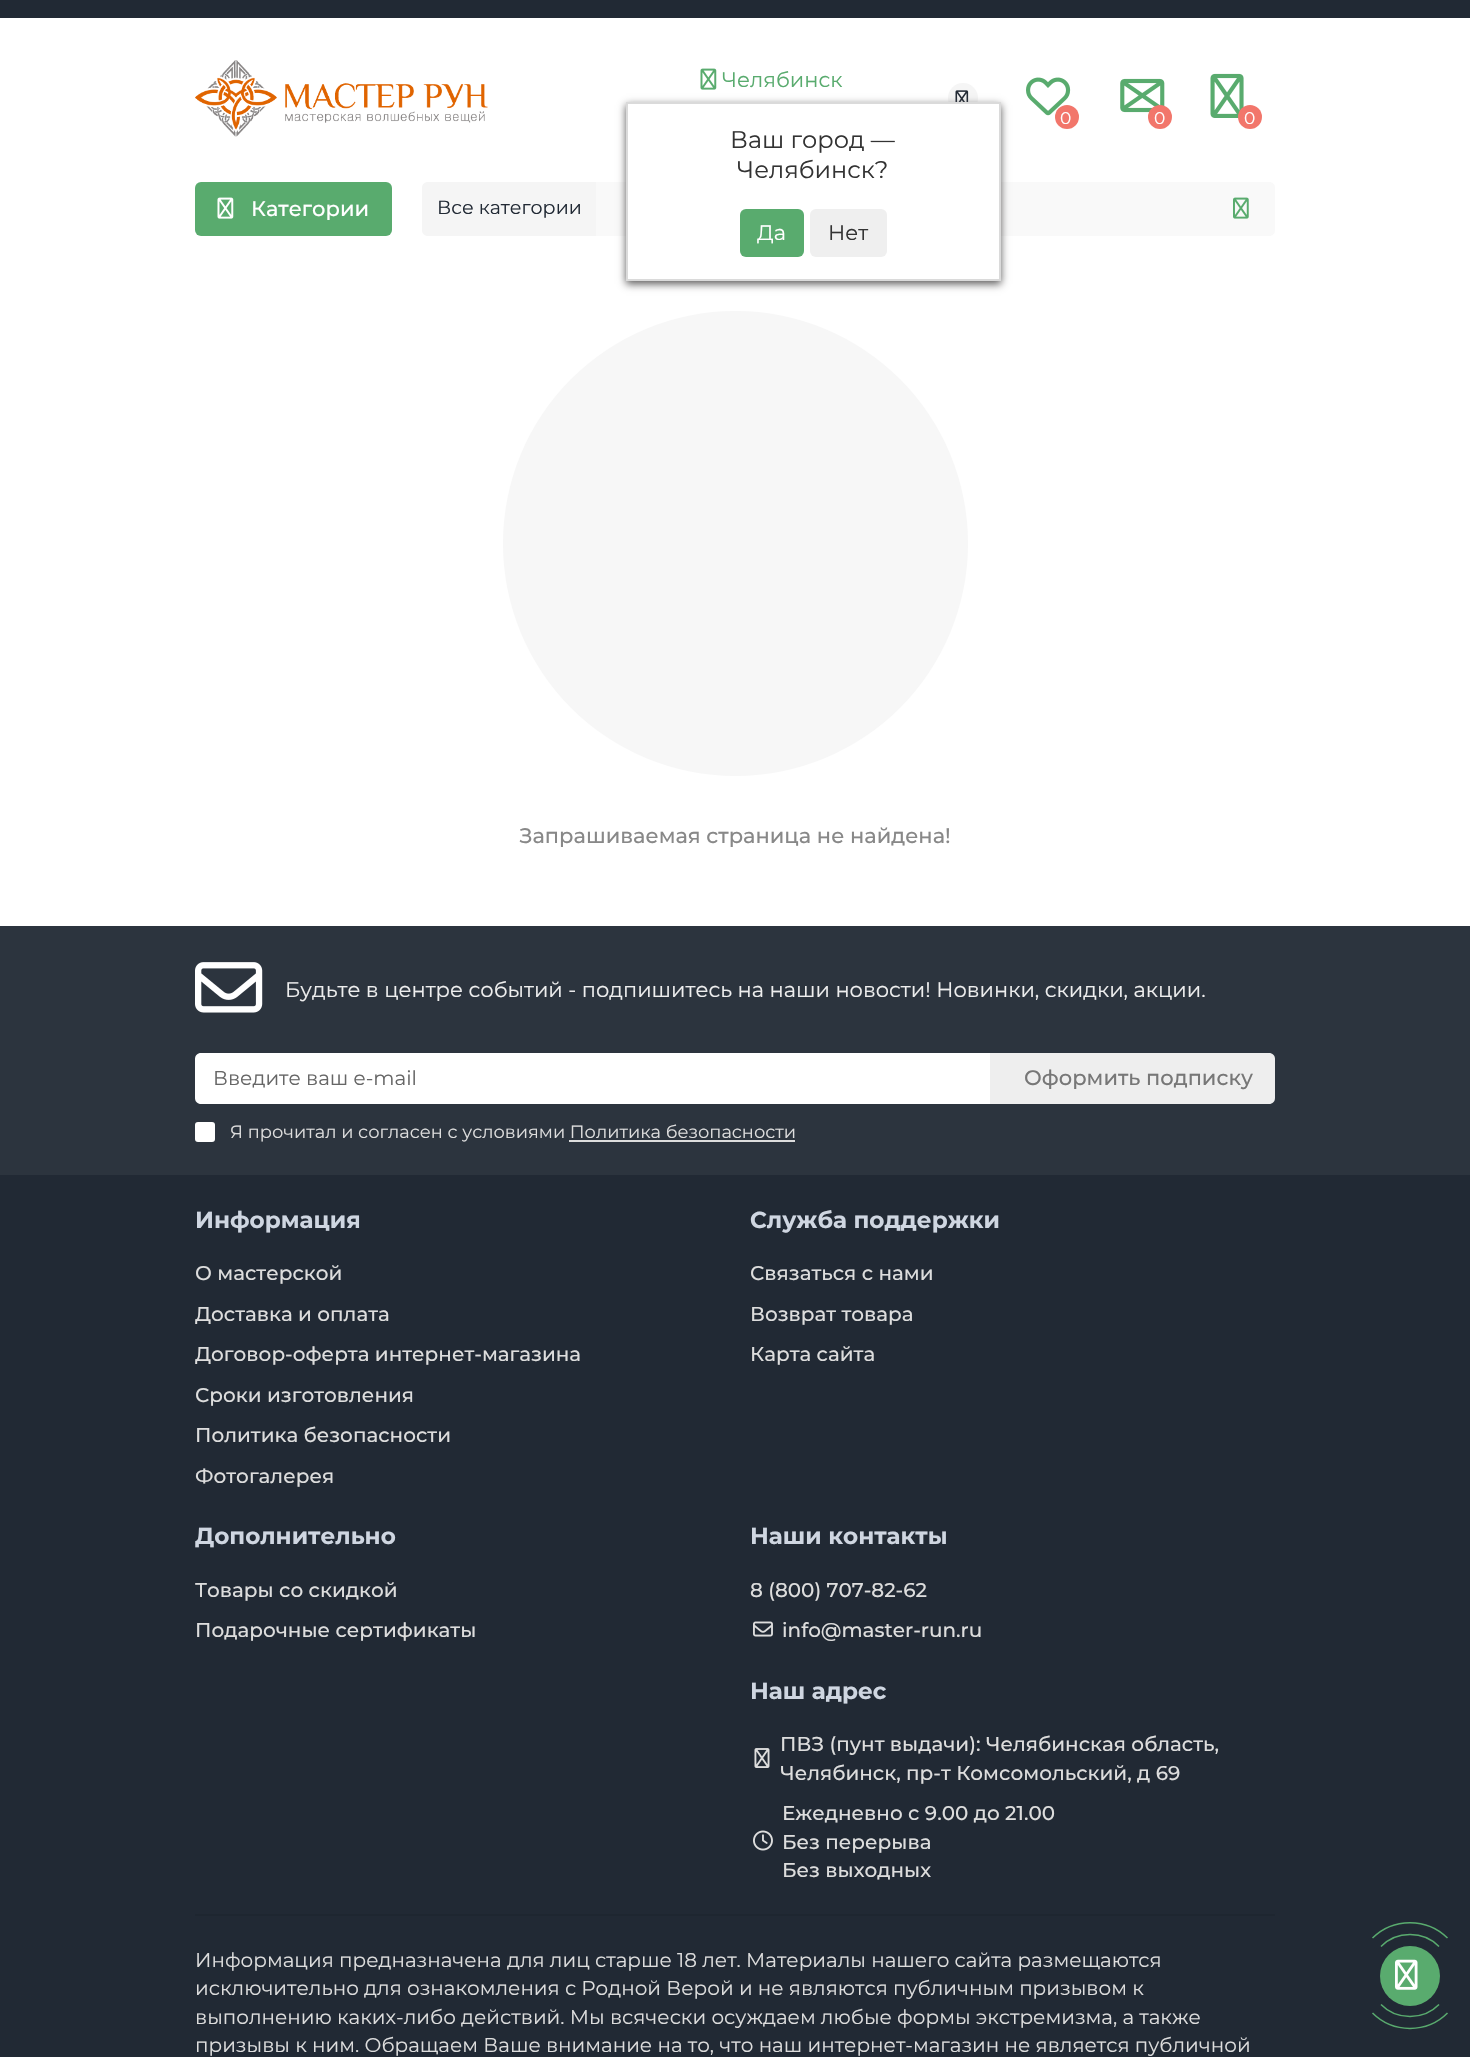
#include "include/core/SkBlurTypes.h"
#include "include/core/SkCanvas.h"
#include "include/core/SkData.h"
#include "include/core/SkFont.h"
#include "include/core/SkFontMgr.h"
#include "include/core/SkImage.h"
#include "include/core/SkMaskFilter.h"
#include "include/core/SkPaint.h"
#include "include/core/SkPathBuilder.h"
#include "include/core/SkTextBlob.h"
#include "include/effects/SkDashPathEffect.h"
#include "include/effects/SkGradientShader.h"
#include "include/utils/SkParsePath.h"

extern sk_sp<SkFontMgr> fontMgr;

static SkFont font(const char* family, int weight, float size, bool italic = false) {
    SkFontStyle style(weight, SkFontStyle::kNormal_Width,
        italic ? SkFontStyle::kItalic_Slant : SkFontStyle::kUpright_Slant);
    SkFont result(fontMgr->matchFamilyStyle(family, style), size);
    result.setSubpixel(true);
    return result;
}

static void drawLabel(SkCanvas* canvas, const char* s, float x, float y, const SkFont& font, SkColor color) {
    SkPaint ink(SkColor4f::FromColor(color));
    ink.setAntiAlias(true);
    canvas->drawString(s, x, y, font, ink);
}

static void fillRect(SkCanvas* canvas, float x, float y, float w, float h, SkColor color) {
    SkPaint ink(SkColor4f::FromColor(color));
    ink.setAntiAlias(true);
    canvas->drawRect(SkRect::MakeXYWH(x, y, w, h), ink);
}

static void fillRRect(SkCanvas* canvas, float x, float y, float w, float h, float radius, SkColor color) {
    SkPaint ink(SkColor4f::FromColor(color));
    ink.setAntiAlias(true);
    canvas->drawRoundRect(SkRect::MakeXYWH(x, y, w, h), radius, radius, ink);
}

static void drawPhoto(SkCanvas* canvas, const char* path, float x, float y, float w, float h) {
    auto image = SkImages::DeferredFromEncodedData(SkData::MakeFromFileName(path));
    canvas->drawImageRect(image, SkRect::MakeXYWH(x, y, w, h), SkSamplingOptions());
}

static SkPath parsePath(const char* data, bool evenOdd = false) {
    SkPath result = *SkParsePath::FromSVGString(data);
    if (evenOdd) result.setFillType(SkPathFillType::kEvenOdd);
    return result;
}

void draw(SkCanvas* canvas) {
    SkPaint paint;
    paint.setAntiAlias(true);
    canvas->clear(0xFFFFFFFF);
    fillRect(canvas, 0, 0, 1470, 18, 0xFF212934);
    fillRRect(canvas, 195, 182, 197, 54, 6, 0xFF59AB6E);
    drawPhoto(canvas, "assets/img1.png", 217, 197, 17, 22);
    SkFont font1 = font("Montserrat", 500, 21);
    drawLabel(canvas, "Категории", 251, 216, font1, 0xFFFFFFFF);
    paint.setColor(0xFFF9F9F9);
    canvas->drawPath(parsePath("M596 182H1269C1272.5 182 1275 184.5 1275 188V230C1275 233.5 1272.5 236 1269 236H596Z"), paint);
    paint.setColor(0xFFF5F5F5);
    canvas->drawPath(parsePath("M428 182H596V236H428C424.5 236 422 233.5 422 230V188C422 184.5 424.5 182 428 182Z"), paint);
    SkFont font2 = font("Montserrat", 400, 19);
    drawLabel(canvas, "Все категории", 437, 214, font2, 0xFF212934);
    drawPhoto(canvas, "assets/img2.png", 1233, 197, 16, 22);
    drawPhoto(canvas, "assets/img3.png", 195, 60, 293, 77);
    drawPhoto(canvas, "assets/img4.png", 700, 68, 17, 22);
    SkFont font3 = font("Montserrat", 400, 21);
    drawLabel(canvas, "Челябинск", 722, 87, font3, 0xFF59AB6E);
    canvas->drawCircle(963, 98, 15, paint);
    drawPhoto(canvas, "assets/img5.png", 955, 90, 14, 12);
    paint.setColor(0xFF5B5A5A);
    paint.setMaskFilter(SkMaskFilter::MakeBlur(kNormal_SkBlurStyle, 4));
    canvas->drawRect(SkRect::MakeXYWH(626, 105, 375, 179), paint);
    paint.setMaskFilter(nullptr);
    paint.setColor(0xFFFFFFFF);
    canvas->drawRect(SkRect::MakeXYWH(627, 103, 373, 177), paint);
    paint.setStroke(true);
    paint.setStrokeWidth(2);
    paint.setColor(0xFFDADADA);
    canvas->drawRect(SkRect::MakeXYWH(627, 103, 373, 177), paint);
    SkFont font4 = font("Montserrat", 400, 24);
    drawLabel(canvas, "Ваш город —", 730, 148, font4, 0xFF333333);
    drawLabel(canvas, "Челябинск?", 737, 178, font4, 0xFF333333);
    fillRRect(canvas, 740, 209, 64, 48, 6, 0xFF59AB6E);
    drawLabel(canvas, "Да", 757, 240, font3, 0xFFFFFFFF);
    fillRRect(canvas, 810, 209, 77, 48, 6, 0xFFEFEFEF);
    drawLabel(canvas, "Нет", 828, 240, font3, 0xFF333333);
    drawPhoto(canvas, "assets/img6.png", 1026, 77, 45, 39);
    paint.setStroke(false);
    paint.setColor(0xFFF2766B);
    canvas->drawCircle(1067, 117, 12, paint);
    SkFont font5 = font("Montserrat", 400, 17);
    drawLabel(canvas, "0", 1060, 124, font5, 0xFFFFFFFF);
    drawPhoto(canvas, "assets/img7.png", 1120, 78, 45, 35);
    canvas->drawCircle(1160, 117, 12, paint);
    drawLabel(canvas, "0", 1154, 124, font5, 0xFFFFFFFF);
    drawPhoto(canvas, "assets/img8.png", 1210, 73, 34, 45);
    canvas->drawCircle(1250, 117, 12, paint);
    drawLabel(canvas, "0", 1244, 124, font5, 0xFFFFFFFF);
    paint.setColor(0xFFF7F7F7);
    canvas->drawCircle(735.5f, 543.5f, 232.5f, paint);
    drawLabel(canvas, "Запрашиваемая страница не найдена!", 519, 843, font1, 0xFF888888);
    fillRect(canvas, 0, 1175, 1470, 882, 0xFF212934);
    fillRect(canvas, 0, 926, 1470, 249, 0xFF2C343E);
    drawPhoto(canvas, "assets/img9.png", 195, 962, 68, 51);
    drawLabel(canvas, "Будьте в центре событий - подпишитесь на наши новости! Новинки, скидки, акции.", 285, 997, font3, 0xFFEEEEEE);
    paint.setColor(0xFFFFFFFF);
    canvas->drawPath(parsePath("M201 1053H990V1104H201C197.5 1104 195 1101.5 195 1098V1059C195 1055.5 197.5 1053 201 1053Z"), paint);
    SkFont font6 = font("Montserrat", 400, 19.95f);
    drawLabel(canvas, "Введите ваш e-mail", 213, 1085, font6, 0xFF666666);
    paint.setColor(0xFFEEEEEE);
    canvas->drawPath(parsePath("M990 1053H1269C1272.5 1053 1275 1055.5 1275 1059V1098C1275 1101.5 1272.5 1104 1269 1104H990Z"), paint);
    drawLabel(canvas, "Оформить подписку", 1024, 1085, font1, 0xFF777777);
    fillRRect(canvas, 195, 1122, 20, 20, 3, 0xFFFFFFFF);
    SkFont font7 = font("Montserrat", 400, 17.85f);
    drawLabel(canvas, "Я прочитал и согласен с условиями Политика безопасности", 230, 1138, font7, 0xFFDDDDDD);
    fillRect(canvas, 569, 1140, 226, 2, 0xFFDDDDDD);
    SkFont font8 = font("Montserrat", 700, 23.1f);
    drawLabel(canvas, "Информация", 195, 1228, font8, 0xFFCFD6E1);
    SkFont font9 = font("Montserrat", 500, 19.95f);
    drawLabel(canvas, "О мастерской", 195, 1280, font9, 0xFFDDDDDD);
    drawLabel(canvas, "Доставка и оплата", 195, 1321, font9, 0xFFDDDDDD);
    drawLabel(canvas, "Договор-оферта интернет-магазина", 195, 1361, font9, 0xFFDDDDDD);
    drawLabel(canvas, "Сроки изготовления", 195, 1402, font9, 0xFFDDDDDD);
    drawLabel(canvas, "Политика безопасности", 195, 1442, font9, 0xFFDDDDDD);
    drawLabel(canvas, "Фотогалерея", 195, 1483, font9, 0xFFDDDDDD);
    drawLabel(canvas, "Служба поддержки", 750, 1228, font8, 0xFFCFD6E1);
    drawLabel(canvas, "Связаться с нами", 750, 1280, font9, 0xFFDDDDDD);
    drawLabel(canvas, "Возврат товара", 750, 1321, font9, 0xFFDDDDDD);
    drawLabel(canvas, "Карта сайта", 750, 1361, font9, 0xFFDDDDDD);
    drawLabel(canvas, "Дополнительно", 195, 1544, font8, 0xFFCFD6E1);
    drawLabel(canvas, "Товары со скидкой", 195, 1597, font9, 0xFFDDDDDD);
    drawLabel(canvas, "Подарочные сертификаты", 195, 1637, font9, 0xFFDDDDDD);
    drawLabel(canvas, "Наши контакты", 750, 1544, font8, 0xFFCFD6E1);
    drawLabel(canvas, "8 (800) 707-82-62", 750, 1597, font9, 0xFFDDDDDD);
    drawPhoto(canvas, "assets/img10.png", 753, 1621, 20, 16);
    drawLabel(canvas, "info@master-run.ru", 782, 1637, font9, 0xFFDDDDDD);
    drawLabel(canvas, "Наш адрес", 750, 1699, font8, 0xFFCFD6E1);
    drawPhoto(canvas, "assets/img11.png", 754, 1748, 16, 20);
    drawLabel(canvas, "ПВЗ (пунт выдачи): Челябинская область,", 780, 1751, font9, 0xFFDDDDDD);
    drawLabel(canvas, "Челябинск, пр-т Комсомольский, д 69", 780, 1780, font9, 0xFFDDDDDD);
    drawLabel(canvas, "Ежедневно с 9.00 до 21.00", 782, 1820, font9, 0xFFDDDDDD);
    drawPhoto(canvas, "assets/img12.png", 753, 1830, 20, 21);
    drawLabel(canvas, "Без перерыва", 782, 1849, font9, 0xFFDDDDDD);
    drawLabel(canvas, "Без выходных", 782, 1877, font9, 0xFFDDDDDD);
    fillRect(canvas, 195, 1914, 1080, 2, 0xFF1E2630);
    drawLabel(canvas, "Информация предназначена для лиц старше 18 лет. Материалы нашего сайта размещаются", 195, 1967, font6, 0xFFDDDDDD);
    drawLabel(canvas, "исключительно для ознакомления с Родной Верой и не являются публичным призывом к", 195, 1995, font6, 0xFFDDDDDD);
    drawLabel(canvas, "выполнению каких-либо действий. Мы всячески осуждаем любые формы экстремизма, а также", 195, 2024, font6, 0xFFDDDDDD);
    drawLabel(canvas, "призывы к ним. Обращаем Ваше внимание на то, что наш интернет-магазин не является публичной", 195, 2052, font6, 0xFFDDDDDD);
    paint.setColor(0xFF59AB6E);
    canvas->drawCircle(1410, 1976, 30, paint);
    paint.setStroke(true);
    paint.setStrokeWidth(1.5f);
    canvas->drawPath(parsePath("M1381 1946.5C1396.5 1930.5 1423.5 1930.5 1439 1946.5"), paint);
    canvas->drawPath(parsePath("M1372.5 1938C1393 1917.5 1427 1917.5 1447.5 1938"), paint);
    canvas->drawPath(parsePath("M1439 2004.5C1423.5 2020.5 1396.5 2020.5 1381 2004.5"), paint);
    canvas->drawPath(parsePath("M1447.5 2013C1427 2033.5 1393 2033.5 1372.5 2013"), paint);
    drawPhoto(canvas, "assets/img13.png", 1395, 1959, 23, 31);
}
